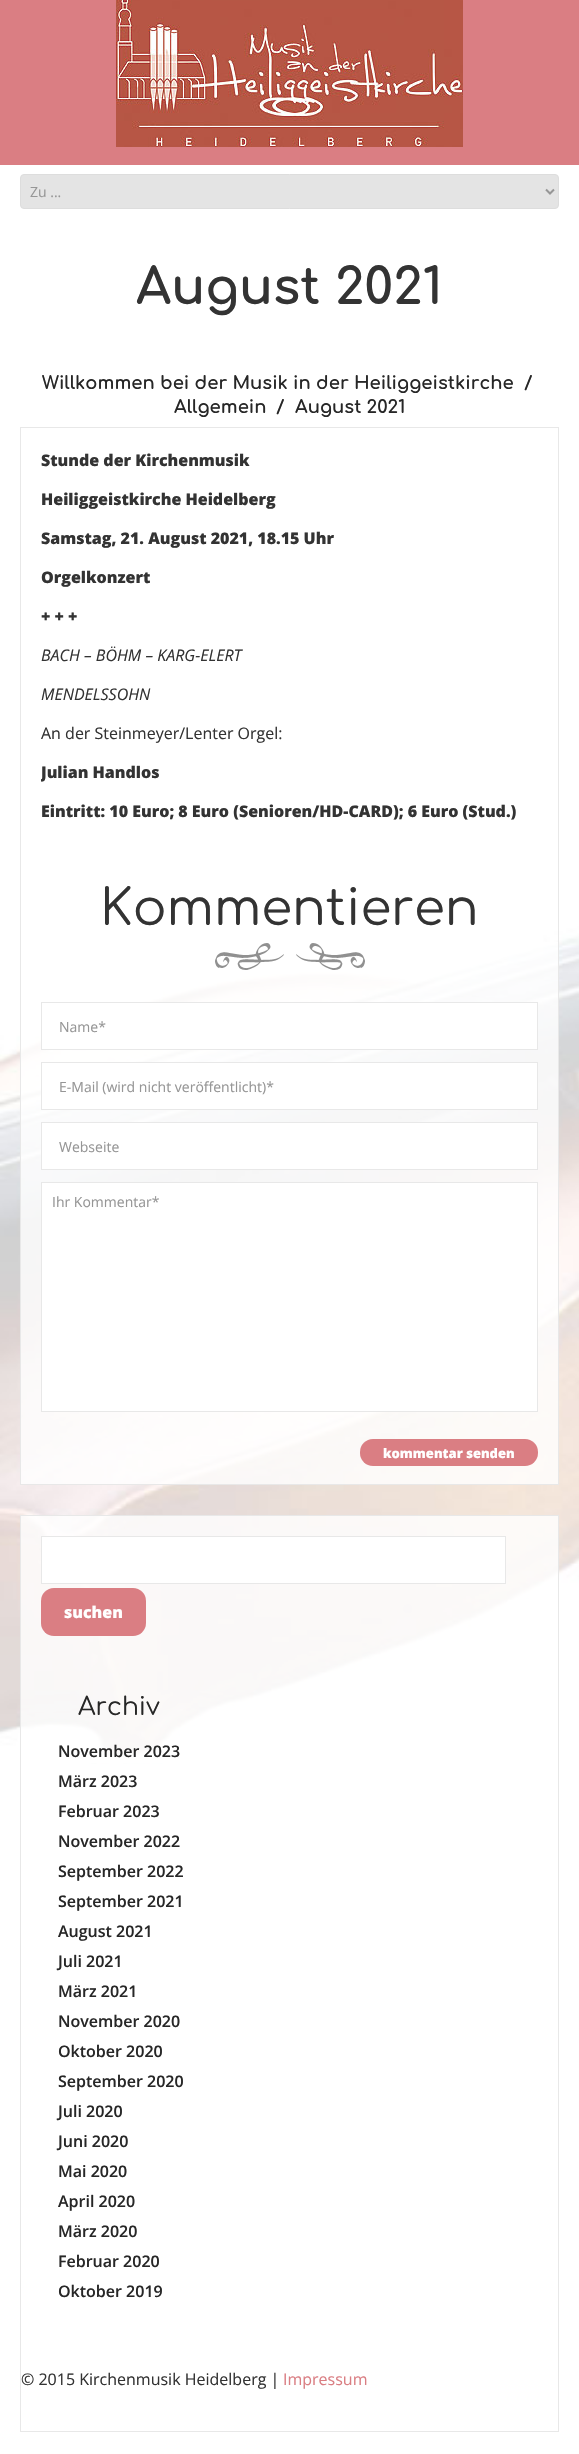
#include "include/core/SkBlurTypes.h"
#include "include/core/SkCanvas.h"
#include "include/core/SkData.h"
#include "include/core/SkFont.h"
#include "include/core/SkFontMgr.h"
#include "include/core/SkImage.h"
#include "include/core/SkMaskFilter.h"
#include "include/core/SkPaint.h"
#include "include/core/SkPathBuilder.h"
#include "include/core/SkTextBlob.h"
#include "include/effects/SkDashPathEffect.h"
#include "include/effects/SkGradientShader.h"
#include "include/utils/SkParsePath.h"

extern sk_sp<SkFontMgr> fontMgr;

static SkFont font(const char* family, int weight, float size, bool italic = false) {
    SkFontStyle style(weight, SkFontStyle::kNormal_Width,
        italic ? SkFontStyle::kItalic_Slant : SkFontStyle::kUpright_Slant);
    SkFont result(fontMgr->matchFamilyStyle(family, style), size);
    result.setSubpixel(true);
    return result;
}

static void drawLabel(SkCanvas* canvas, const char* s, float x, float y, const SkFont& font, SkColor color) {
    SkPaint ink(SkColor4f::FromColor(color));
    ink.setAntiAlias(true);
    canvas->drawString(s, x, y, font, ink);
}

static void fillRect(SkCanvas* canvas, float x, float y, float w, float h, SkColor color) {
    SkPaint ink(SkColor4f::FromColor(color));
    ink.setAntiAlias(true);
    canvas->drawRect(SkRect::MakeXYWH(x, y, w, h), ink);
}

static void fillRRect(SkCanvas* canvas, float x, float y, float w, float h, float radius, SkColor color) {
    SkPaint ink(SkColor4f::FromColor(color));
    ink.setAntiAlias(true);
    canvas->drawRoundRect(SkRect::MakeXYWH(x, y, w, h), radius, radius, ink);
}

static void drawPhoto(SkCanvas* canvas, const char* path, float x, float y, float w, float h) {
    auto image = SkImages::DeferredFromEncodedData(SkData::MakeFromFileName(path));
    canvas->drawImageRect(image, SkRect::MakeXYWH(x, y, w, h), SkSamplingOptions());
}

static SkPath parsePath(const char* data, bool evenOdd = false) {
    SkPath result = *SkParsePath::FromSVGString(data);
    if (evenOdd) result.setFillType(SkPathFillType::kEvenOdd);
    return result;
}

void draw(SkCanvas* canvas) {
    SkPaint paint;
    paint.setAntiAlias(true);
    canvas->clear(0xFFFFFFFF);
    drawPhoto(canvas, "assets/img1.png", 0, 165, 579, 2289);
    fillRect(canvas, 0, 0, 20, 165, 0xFFDA7E83);
    fillRect(canvas, 20, 0, 559, 165, 0xFFDA7E83);
    drawPhoto(canvas, "assets/img2.png", 116, 0, 347, 147);
    paint.setColor(0xFFE4E4E4);
    canvas->drawRoundRect(SkRect::MakeXYWH(20.5f, 174.5f, 538, 34), 3.5f, 3.5f, paint);
    paint.setStroke(true);
    paint.setStrokeWidth(1);
    paint.setColor(0xFFDDDDDD);
    canvas->drawRoundRect(SkRect::MakeXYWH(20.5f, 174.5f, 538, 34), 3.5f, 3.5f, paint);
    paint.setStrokeWidth(2);
    paint.setColor(0xFF969696);
    canvas->drawPath(parsePath("M546 189.5L550 193.5L554 189.5"), paint);
    SkFont font1 = font("Open Sans", 400, 14);
    drawLabel(canvas, "Zu ...", 30, 197, font1, 0xFF969696);
    SkFont font2 = font("Comfortaa", 700, 50);
    drawLabel(canvas, "August 2021", 136, 304, font2, 0xFF333333);
    SkFont font3 = font("Comfortaa", 700, 18);
    drawLabel(canvas, "Willkommen bei der Musik in der Heiliggeistkirche", 42, 389, font3, 0xFF272727);
    drawLabel(canvas, "/", 524, 389, font3, 0xFF272727);
    drawLabel(canvas, "Allgemein", 174, 413, font3, 0xFF272727);
    drawLabel(canvas, "/", 276, 413, font3, 0xFF272727);
    drawLabel(canvas, "August 2021", 295, 413, font3, 0xFF272727);
    fillRect(canvas, 21, 942, 537, 542, 0xCCFFFFFF);
    paint.setStrokeWidth(1);
    paint.setColor(0xFFE8E8E8);
    canvas->drawRect(SkRect::MakeXYWH(20.5f, 427.5f, 538, 1057), paint);
    SkFont font4 = font("Open Sans", 800, 16);
    drawLabel(canvas, "Stunde der Kirchenmusik", 41, 466, font4, 0xFF333333);
    drawLabel(canvas, "Heiliggeistkirche Heidelberg", 41, 505, font4, 0xFF333333);
    drawLabel(canvas, "Samstag, 21. August 2021, 18.15 Uhr", 41, 544, font4, 0xFF333333);
    drawLabel(canvas, "Orgelkonzert", 41, 583, font4, 0xFF333333);
    drawLabel(canvas, "+ + +", 41, 622, font4, 0xFF333333);
    SkFont font5 = font("Open Sans", 400, 16, true);
    drawLabel(canvas, "BACH – BÖHM – KARG-ELERT", 41, 661, font5, 0xFF333333);
    drawLabel(canvas, "MENDELSSOHN", 41, 700, font5, 0xFF333333);
    SkFont font6 = font("Open Sans", 400, 16);
    drawLabel(canvas, "An der Steinmeyer/Lenter Orgel:", 41, 739, font6, 0xFF333333);
    canvas->save();
    canvas->clipRect(SkRect::MakeXYWH(41, 448, 497, 410));
    drawLabel(canvas, "Julian Handlos", 41, 778, font4, 0xFF333333);
    canvas->restore();
    drawLabel(canvas, "Eintritt: 10 Euro; 8 Euro (Senioren/HD-CARD); 6 Euro (Stud.)", 41, 817, font4, 0xFF333333);
    SkFont font7 = font("Comfortaa", 400, 50);
    drawLabel(canvas, "Kommentieren", 100, 925, font7, 0xFF333333);
    drawPhoto(canvas, "assets/img3.png", 215, 943, 69, 27);
    drawPhoto(canvas, "assets/img4.png", 296, 943, 69, 27);
    paint.setStroke(false);
    paint.setColor(0xFFFFFFFF);
    canvas->drawRect(SkRect::MakeXYWH(41.5f, 1002.5f, 496, 47), paint);
    paint.setStroke(true);
    paint.setColor(0xFFE8E8E8);
    canvas->drawRect(SkRect::MakeXYWH(41.5f, 1002.5f, 496, 47), paint);
    drawLabel(canvas, "Name*", 59, 1032, font1, 0xFF969696);
    paint.setStroke(false);
    paint.setColor(0xFFFFFFFF);
    canvas->drawRect(SkRect::MakeXYWH(41.5f, 1062.5f, 496, 47), paint);
    paint.setStroke(true);
    paint.setColor(0xFFE8E8E8);
    canvas->drawRect(SkRect::MakeXYWH(41.5f, 1062.5f, 496, 47), paint);
    drawLabel(canvas, "E-Mail (wird nicht veröffentlicht)*", 59, 1092, font1, 0xFF969696);
    paint.setStroke(false);
    paint.setColor(0xFFFFFFFF);
    canvas->drawRect(SkRect::MakeXYWH(41.5f, 1122.5f, 496, 47), paint);
    paint.setStroke(true);
    paint.setColor(0xFFE8E8E8);
    canvas->drawRect(SkRect::MakeXYWH(41.5f, 1122.5f, 496, 47), paint);
    drawLabel(canvas, "Webseite", 59, 1152, font1, 0xFF969696);
    paint.setStroke(false);
    paint.setColor(0xFFFFFFFF);
    canvas->drawRect(SkRect::MakeXYWH(41.5f, 1182.5f, 496, 229), paint);
    paint.setStroke(true);
    paint.setColor(0xFFE8E8E8);
    canvas->drawRect(SkRect::MakeXYWH(41.5f, 1182.5f, 496, 229), paint);
    drawLabel(canvas, "Ihr Kommentar*", 52, 1207, font1, 0xFF969696);
    fillRRect(canvas, 360, 1439, 178, 27, 13, 0xFFDA7E83);
    SkFont font8 = font("Open Sans", 800, 13);
    drawLabel(canvas, "kommentar senden", 383, 1458, font8, 0xFFFFFFFF);
    fillRect(canvas, 21, 1516, 537, 247, 0xCCFFFFFF);
    canvas->drawRect(SkRect::MakeXYWH(20.5f, 1515.5f, 538, 916), paint);
    paint.setStroke(false);
    paint.setColor(0xFFFFFFFF);
    canvas->drawRect(SkRect::MakeXYWH(41.5f, 1536.5f, 464, 47), paint);
    paint.setStroke(true);
    paint.setColor(0xFFE8E8E8);
    canvas->drawRect(SkRect::MakeXYWH(41.5f, 1536.5f, 464, 47), paint);
    fillRRect(canvas, 41, 1588, 105, 48, 13, 0xFFDA7E83);
    drawLabel(canvas, "suchen", 64, 1618, font4, 0xFFFFFFFF);
    SkFont font9 = font("Comfortaa", 400, 25);
    drawLabel(canvas, "Archiv", 78, 1715, font9, 0xFF272727);
    SkFont font10 = font("Open Sans", 600, 16);
    drawLabel(canvas, "November 2023", 58, 1757, font10, 0xFF272727);
    drawLabel(canvas, "März 2023", 58, 1787, font10, 0xFF272727);
    drawLabel(canvas, "Februar 2023", 58, 1817, font10, 0xFF272727);
    drawLabel(canvas, "November 2022", 58, 1847, font10, 0xFF272727);
    drawLabel(canvas, "September 2022", 58, 1877, font10, 0xFF272727);
    drawLabel(canvas, "September 2021", 58, 1907, font10, 0xFF272727);
    drawLabel(canvas, "August 2021", 58, 1937, font10, 0xFF272727);
    drawLabel(canvas, "Juli 2021", 58, 1967, font10, 0xFF272727);
    drawLabel(canvas, "März 2021", 58, 1997, font10, 0xFF272727);
    drawLabel(canvas, "November 2020", 58, 2027, font10, 0xFF272727);
    drawLabel(canvas, "Oktober 2020", 58, 2057, font10, 0xFF272727);
    drawLabel(canvas, "September 2020", 58, 2087, font10, 0xFF272727);
    drawLabel(canvas, "Juli 2020", 58, 2117, font10, 0xFF272727);
    drawLabel(canvas, "Juni 2020", 58, 2147, font10, 0xFF272727);
    drawLabel(canvas, "Mai 2020", 58, 2177, font10, 0xFF272727);
    drawLabel(canvas, "April 2020", 58, 2207, font10, 0xFF272727);
    drawLabel(canvas, "März 2020", 58, 2237, font10, 0xFF272727);
    drawLabel(canvas, "Februar 2020", 58, 2267, font10, 0xFF272727);
    drawLabel(canvas, "Oktober 2019", 58, 2297, font10, 0xFF272727);
    drawLabel(canvas, "© 2015 Kirchenmusik Heidelberg |", 21, 2385, font6, 0xFF333333);
    drawLabel(canvas, "Impressum", 283, 2385, font6, 0xFFDA7E83);
}
